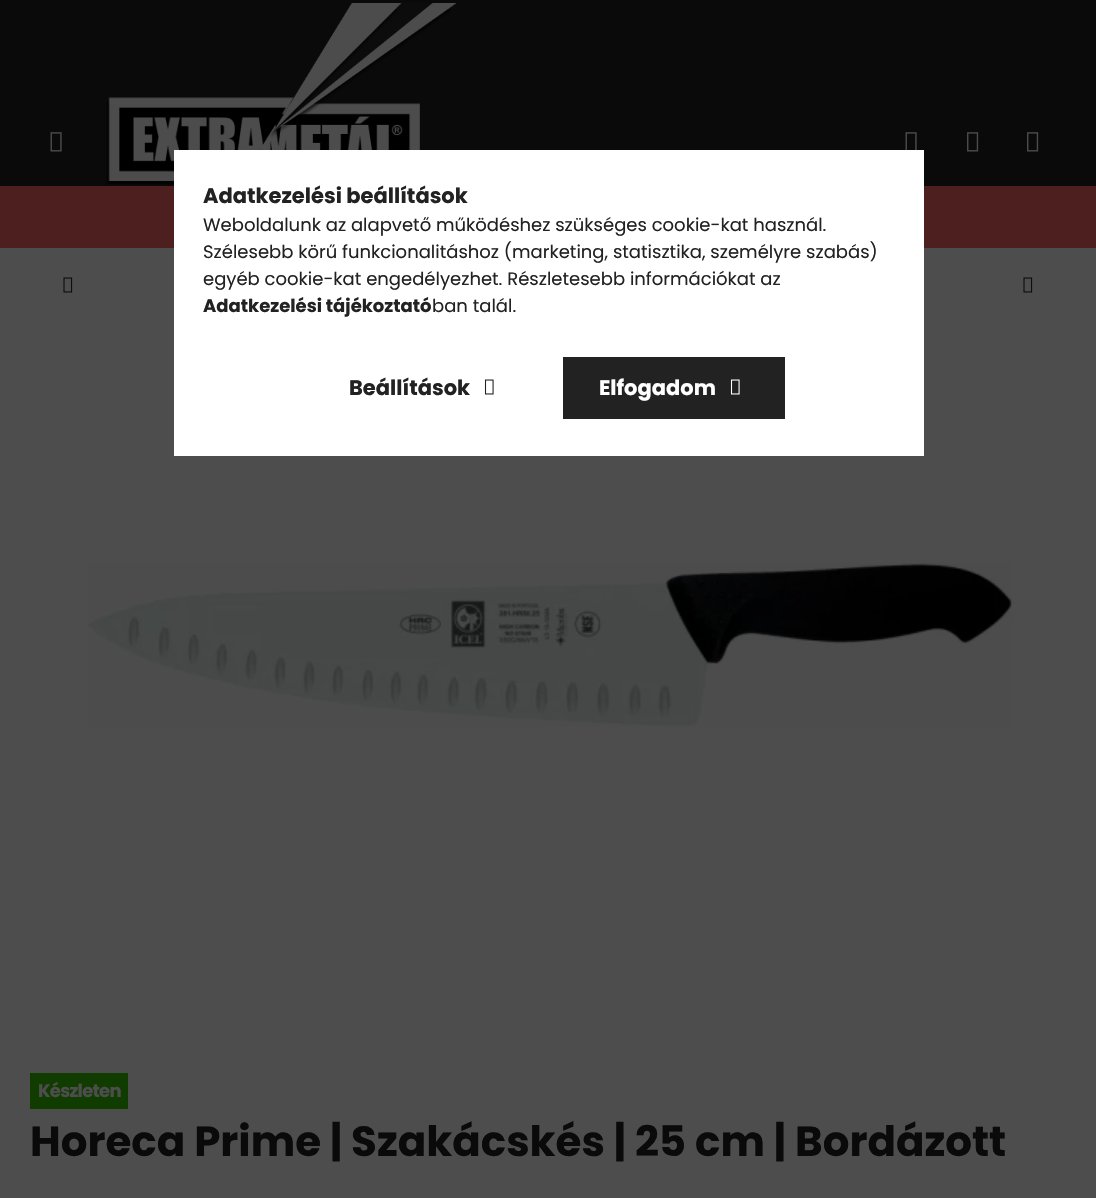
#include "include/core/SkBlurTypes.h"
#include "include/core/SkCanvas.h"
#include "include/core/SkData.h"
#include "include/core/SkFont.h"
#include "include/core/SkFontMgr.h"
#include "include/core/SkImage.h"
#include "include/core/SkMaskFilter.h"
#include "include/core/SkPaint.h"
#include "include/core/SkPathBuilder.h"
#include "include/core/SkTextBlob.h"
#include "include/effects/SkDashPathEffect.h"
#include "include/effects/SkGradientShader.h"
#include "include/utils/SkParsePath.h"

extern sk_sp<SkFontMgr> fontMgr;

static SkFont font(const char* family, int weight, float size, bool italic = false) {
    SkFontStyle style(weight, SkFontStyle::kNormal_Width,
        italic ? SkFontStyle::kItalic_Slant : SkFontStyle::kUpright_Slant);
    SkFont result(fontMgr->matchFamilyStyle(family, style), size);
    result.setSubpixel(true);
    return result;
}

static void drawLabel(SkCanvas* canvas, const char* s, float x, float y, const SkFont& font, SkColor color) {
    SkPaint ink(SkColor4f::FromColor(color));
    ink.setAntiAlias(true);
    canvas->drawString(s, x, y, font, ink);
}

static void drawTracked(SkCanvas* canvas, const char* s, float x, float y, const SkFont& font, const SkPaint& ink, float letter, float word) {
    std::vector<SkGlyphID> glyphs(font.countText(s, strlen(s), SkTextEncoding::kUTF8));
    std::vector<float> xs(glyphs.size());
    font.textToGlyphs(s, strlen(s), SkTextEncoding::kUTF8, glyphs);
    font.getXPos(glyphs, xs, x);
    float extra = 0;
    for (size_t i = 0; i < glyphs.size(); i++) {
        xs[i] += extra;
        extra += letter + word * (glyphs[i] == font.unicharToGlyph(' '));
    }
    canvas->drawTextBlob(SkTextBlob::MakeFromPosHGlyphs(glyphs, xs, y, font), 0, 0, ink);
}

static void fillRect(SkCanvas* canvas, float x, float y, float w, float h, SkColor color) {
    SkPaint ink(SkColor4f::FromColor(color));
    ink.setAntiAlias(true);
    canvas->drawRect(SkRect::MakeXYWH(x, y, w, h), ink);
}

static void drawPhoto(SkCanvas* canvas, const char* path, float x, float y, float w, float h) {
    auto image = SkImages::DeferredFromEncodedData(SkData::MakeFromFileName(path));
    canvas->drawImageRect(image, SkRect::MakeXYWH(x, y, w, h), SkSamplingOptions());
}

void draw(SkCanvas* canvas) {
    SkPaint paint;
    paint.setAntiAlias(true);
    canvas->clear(0xFF4D4D4D);
    fillRect(canvas, 0, 0, 1096, 186, 0xFF0A0A0A);
    drawPhoto(canvas, "assets/img4.png", 106, 97, 188, 88);
    fillRect(canvas, 0, 186, 1096, 62, 0xFF4D1F1F);
    fillRect(canvas, 174, 150, 750, 306, 0xFFFFFFFF);
    SkFont font1 = font("Poppins", 700, 21);
    drawLabel(canvas, "Adatkezelési beállítások", 203, 203, font1, 0xFF222222);
    SkFont font2 = font("Poppins", 400, 18);
    drawLabel(canvas, "Weboldalunk az alapvető működéshez szükséges cookie-kat használ.", 203, 231, font2, 0xFF222222);
    drawLabel(canvas, "Szélesebb körű funkcionalitáshoz (marketing, statisztika, személyre szabás)", 203, 258, font2, 0xFF222222);
    drawLabel(canvas, "egyéb cookie-kat engedélyezhet. Részletesebb információkat az", 203, 285, font2, 0xFF222222);
    SkFont font3 = font("Poppins", 700, 18);
    drawLabel(canvas, "Adatkezelési tájékoztató", 203, 312, font3, 0xFF222222);
    drawLabel(canvas, "ban talál.", 432, 312, font2, 0xFF222222);
    drawLabel(canvas, "Beállítások", 349, 395, font1, 0xFF222222);
    drawPhoto(canvas, "assets/img1.png", 484, 379, 10, 16);
    {
        const SkColor colors[] = {0xFF202020, 0xFF202020, 0xFF222222, 0xFF222222};
        const float stops[] = {0, 0.33f, 0.67f, 1};
        const SkPoint ends[] = {{119, 388}, {785, 388}};
        paint.setShader(SkGradientShader::MakeLinear(ends, colors, stops, 4, SkTileMode::kClamp));
        paint.setAlpha(255);
    }
    canvas->drawRect(SkRect::MakeXYWH(563, 357, 222, 62), paint);
    drawLabel(canvas, "Elfogadom", 599, 395, font1, 0xFFFFFFFF);
    drawPhoto(canvas, "assets/img2.png", 730, 379, 10, 16);
    drawPhoto(canvas, "assets/img3.png", 50, 132, 12, 20);
    drawPhoto(canvas, "assets/img6.png", 259, 103, 161, 47);
    drawPhoto(canvas, "assets/img5.png", 270, 3, 187, 135);
    drawPhoto(canvas, "assets/img7.png", 905, 132, 12, 18);
    drawPhoto(canvas, "assets/img8.png", 967, 132, 12, 20);
    drawPhoto(canvas, "assets/img8.png", 1027, 132, 12, 20);
    drawPhoto(canvas, "assets/img9.png", 63, 277, 10, 16);
    drawPhoto(canvas, "assets/img9.png", 1023, 277, 10, 16);
    drawPhoto(canvas, "assets/img10.png", 88, 563, 924, 164);
    fillRect(canvas, 30, 1073, 98, 36, 0xFF103C00);
    paint.setShader(nullptr);
    paint.setColor(0xFF4D4D4D);
    drawTracked(canvas, "Készleten", 38, 1097, font3, paint, -0.75f, 0);
    SkFont font4 = font("Poppins", 700, 42);
    drawLabel(canvas, "Horeca Prime | Szakácskés | 25 cm | Bordázott", 30, 1156, font4, 0xFF0A0A0A);
}
